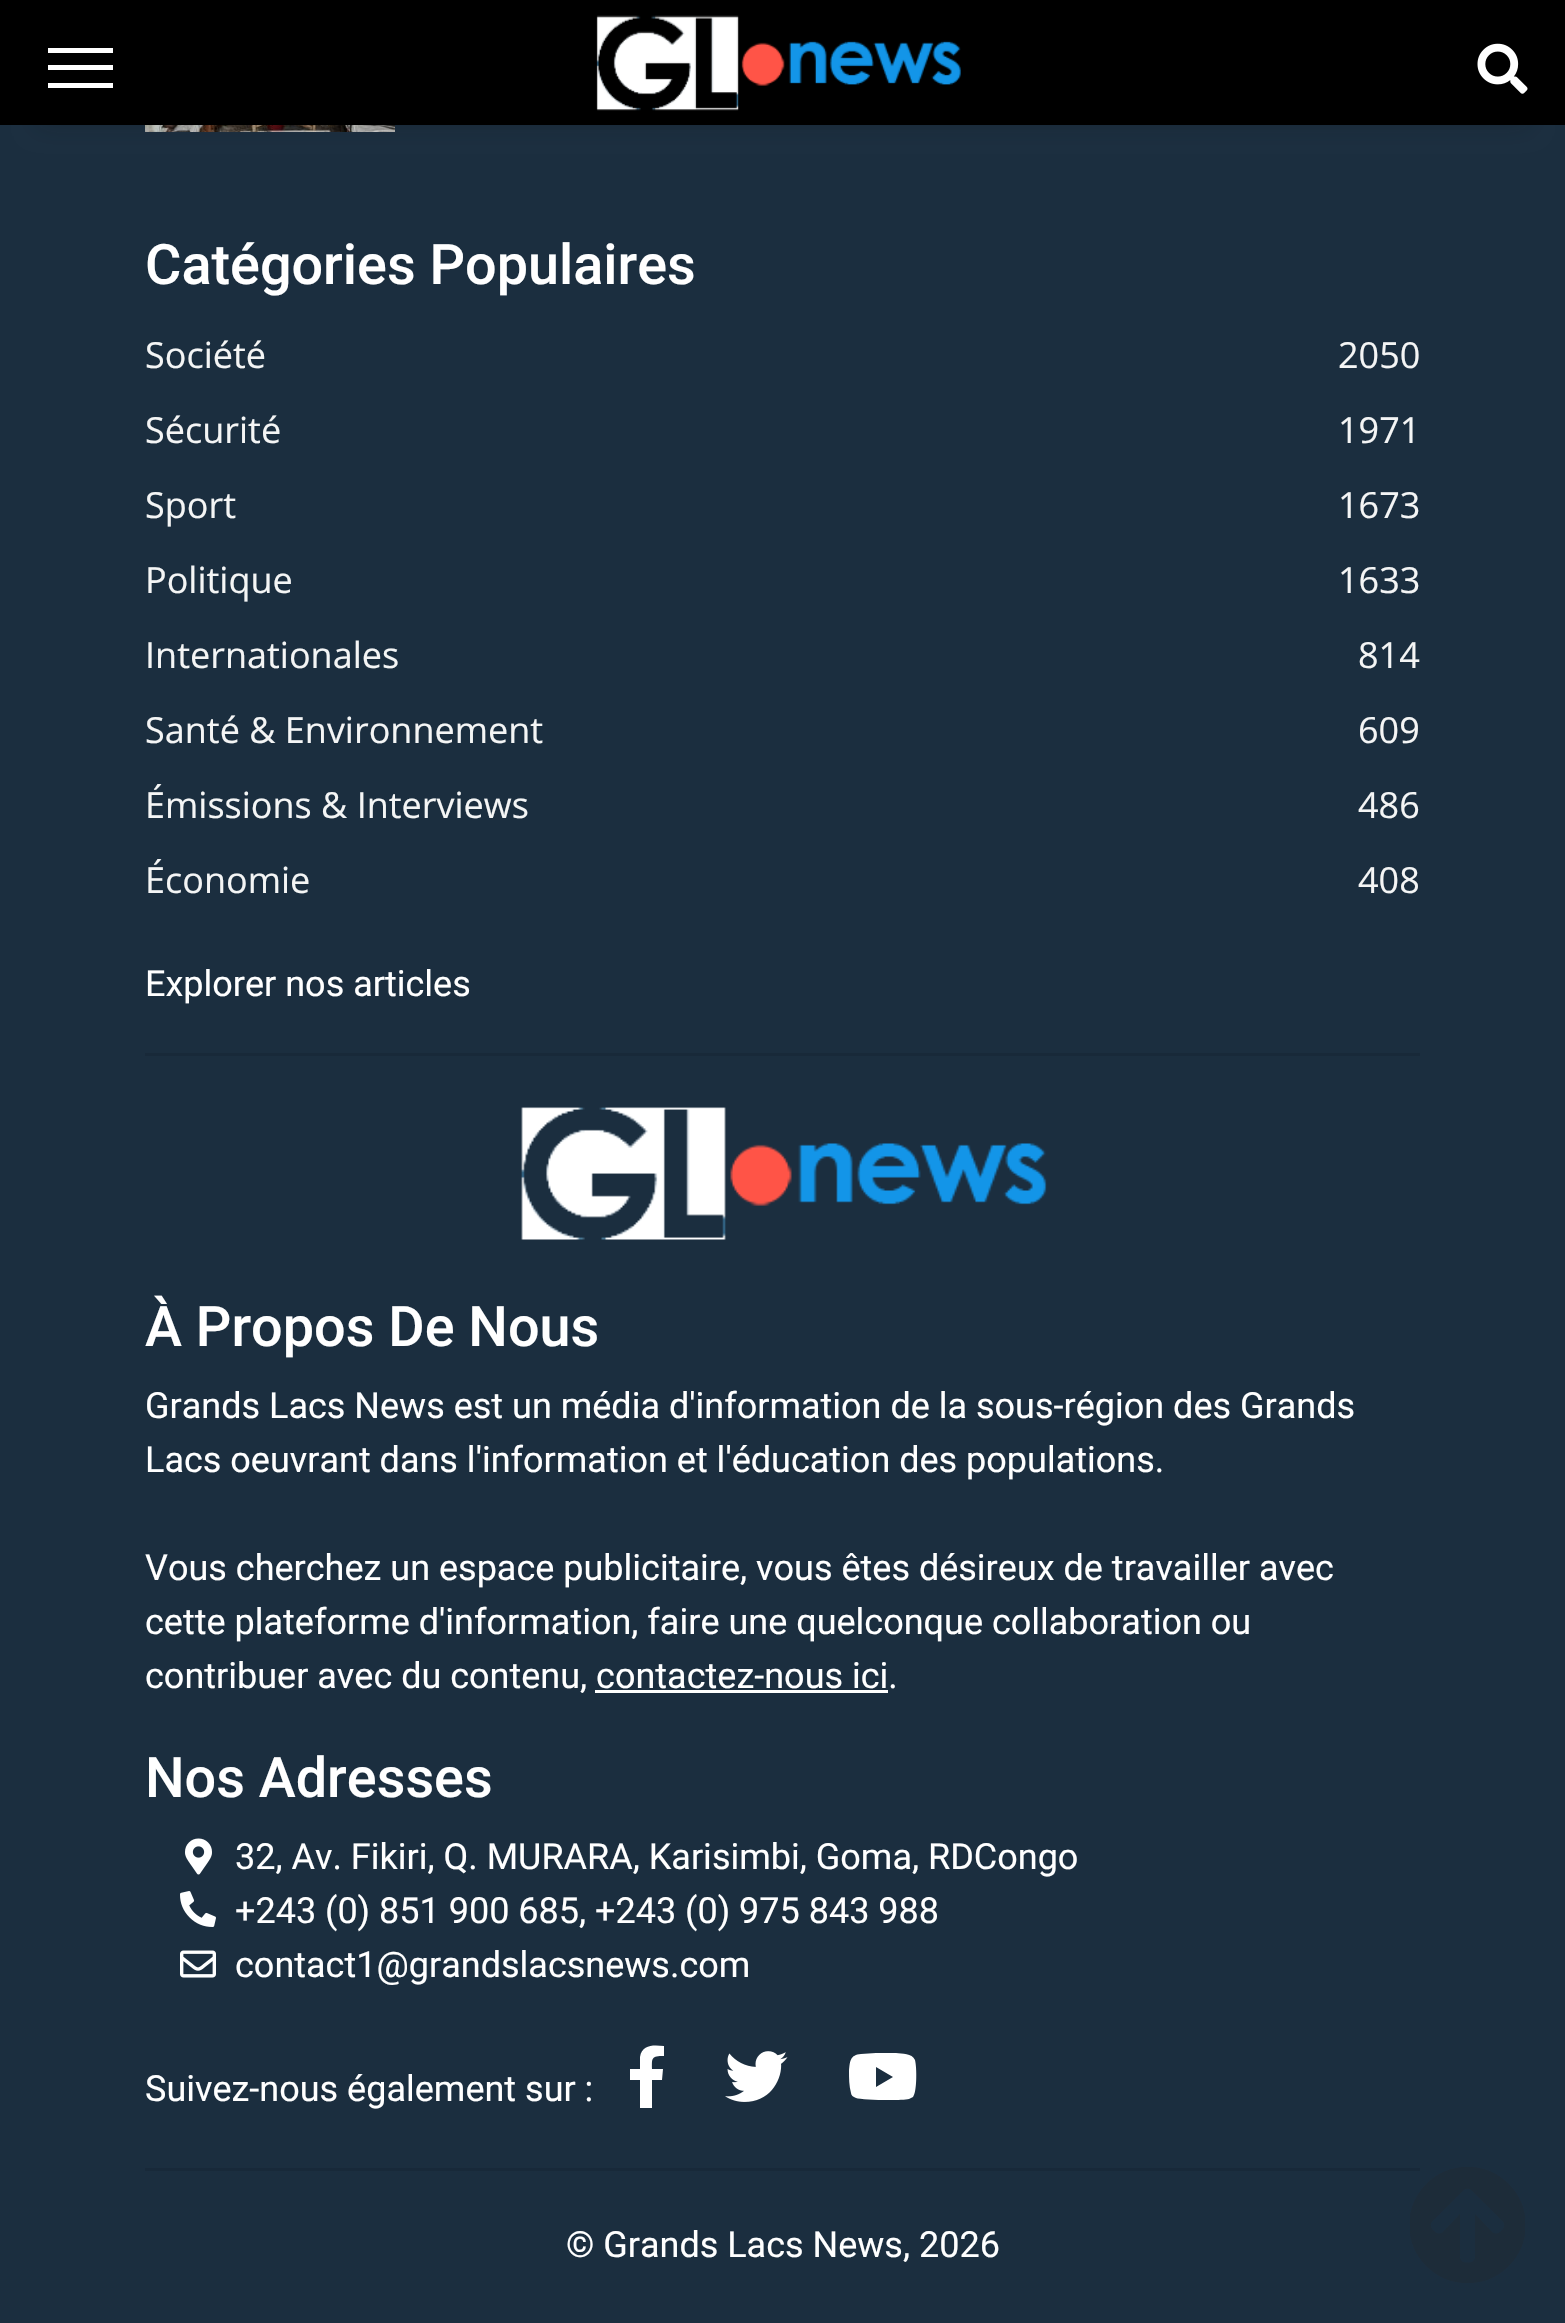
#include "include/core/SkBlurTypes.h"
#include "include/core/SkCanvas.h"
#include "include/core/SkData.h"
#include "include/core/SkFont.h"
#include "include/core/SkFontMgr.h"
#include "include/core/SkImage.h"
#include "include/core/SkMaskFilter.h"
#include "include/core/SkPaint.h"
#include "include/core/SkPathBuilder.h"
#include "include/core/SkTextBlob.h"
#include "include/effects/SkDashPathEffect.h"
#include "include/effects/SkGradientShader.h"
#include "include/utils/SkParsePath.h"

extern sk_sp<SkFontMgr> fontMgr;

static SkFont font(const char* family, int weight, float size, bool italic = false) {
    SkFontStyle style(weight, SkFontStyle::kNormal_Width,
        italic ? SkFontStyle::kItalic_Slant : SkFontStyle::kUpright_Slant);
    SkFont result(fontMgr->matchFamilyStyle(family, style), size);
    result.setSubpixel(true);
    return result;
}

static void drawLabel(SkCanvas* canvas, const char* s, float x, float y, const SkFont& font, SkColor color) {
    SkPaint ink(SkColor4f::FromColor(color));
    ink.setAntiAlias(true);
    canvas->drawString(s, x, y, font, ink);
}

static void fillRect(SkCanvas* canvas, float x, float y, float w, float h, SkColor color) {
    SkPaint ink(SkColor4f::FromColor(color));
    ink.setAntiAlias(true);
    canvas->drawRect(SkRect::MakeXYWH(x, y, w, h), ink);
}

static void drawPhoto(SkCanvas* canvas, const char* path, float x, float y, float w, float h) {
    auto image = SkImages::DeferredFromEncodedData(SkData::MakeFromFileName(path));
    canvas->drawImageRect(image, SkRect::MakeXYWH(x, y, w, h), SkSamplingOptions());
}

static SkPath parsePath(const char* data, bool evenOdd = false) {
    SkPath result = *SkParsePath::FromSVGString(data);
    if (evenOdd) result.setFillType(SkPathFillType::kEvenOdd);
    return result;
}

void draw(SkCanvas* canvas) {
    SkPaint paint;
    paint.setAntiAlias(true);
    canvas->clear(0xFF1B2E3F);
    drawPhoto(canvas, "assets/img3.png", 145, 125, 250, 7);
    paint.setColor(0x33121212);
    paint.setMaskFilter(SkMaskFilter::MakeBlur(kNormal_SkBlurStyle, 12.5f));
    canvas->drawRect(SkRect::MakeXYWH(38, 75, 1490, 50), paint);
    paint.setMaskFilter(nullptr);
    fillRect(canvas, 0, 0, 1565, 125, 0xFF000000);
    fillRect(canvas, 48, 83, 65, 5, 0xFFFFFFFF);
    fillRect(canvas, 48, 65, 65, 5, 0xFFFFFFFF);
    fillRect(canvas, 48, 48, 65, 5, 0xFFFFFFFF);
    drawPhoto(canvas, "assets/img1.png", 596, 15, 365, 96);
    drawPhoto(canvas, "assets/img2.png", 1477, 43, 51, 51);
    SkFont font1 = font("Roboto", 500, 55.75f);
    drawLabel(canvas, "Catégories Populaires", 145, 284, font1, 0xFFFFFFFF);
    SkFont font2 = font("Open Sans", 400, 36);
    drawLabel(canvas, "Société", 145, 368, font2, 0xFFF4F5F5);
    drawLabel(canvas, "2050", 1338, 368, font2, 0xFFF4F5F5);
    drawLabel(canvas, "Sécurité", 145, 443, font2, 0xFFF4F5F5);
    drawLabel(canvas, "1971", 1338, 443, font2, 0xFFF4F5F5);
    drawLabel(canvas, "Sport", 145, 518, font2, 0xFFF4F5F5);
    drawLabel(canvas, "1673", 1338, 518, font2, 0xFFF4F5F5);
    drawLabel(canvas, "Politique", 145, 593, font2, 0xFFF4F5F5);
    drawLabel(canvas, "1633", 1338, 593, font2, 0xFFF4F5F5);
    drawLabel(canvas, "Internationales", 145, 668, font2, 0xFFF4F5F5);
    drawLabel(canvas, "814", 1358, 668, font2, 0xFFF4F5F5);
    drawLabel(canvas, "Santé & Environnement", 145, 743, font2, 0xFFF4F5F5);
    drawLabel(canvas, "609", 1358, 743, font2, 0xFFF4F5F5);
    drawLabel(canvas, "Émissions & Interviews", 145, 818, font2, 0xFFF4F5F5);
    drawLabel(canvas, "486", 1358, 818, font2, 0xFFF4F5F5);
    drawLabel(canvas, "Économie", 145, 893, font2, 0xFFF4F5F5);
    drawLabel(canvas, "408", 1358, 893, font2, 0xFFF4F5F5);
    SkFont font3 = font("Roboto", 400, 36);
    drawLabel(canvas, "Explorer nos articles", 145, 996, font3, 0xFFFFFFFF);
    fillRect(canvas, 145, 1053, 1275, 3, 0xFF182939);
    drawPhoto(canvas, "assets/img4.png", 521, 1107, 526, 133);
    drawLabel(canvas, "À Propos De Nous", 145, 1346, font1, 0xFFFFFFFF);
    drawLabel(canvas, "Grands Lacs News est un média d'information de la sous-région des Grands", 145, 1418, font3, 0xFFFFFFFF);
    drawLabel(canvas, "Lacs oeuvrant dans l'information et l'éducation des populations.", 145, 1472, font3, 0xFFFFFFFF);
    drawLabel(canvas, "Vous cherchez un espace publicitaire, vous êtes désireux de travailler avec", 145, 1580, font3, 0xFFFFFFFF);
    drawLabel(canvas, "cette plateforme d'information, faire une quelconque collaboration ou", 145, 1634, font3, 0xFFFFFFFF);
    drawLabel(canvas, "contribuer avec du contenu, contactez-nous ici.", 145, 1688, font3, 0xFFFFFFFF);
    fillRect(canvas, 595, 1690, 293, 3, 0xFFFFFFFF);
    drawLabel(canvas, "Nos Adresses", 145, 1797, font1, 0xFFFFFFFF);
    drawPhoto(canvas, "assets/img5.png", 185, 1838, 27, 37);
    drawLabel(canvas, "32, Av. Fikiri, Q. MURARA, Karisimbi, Goma, RDCongo", 235, 1869, font3, 0xFFFFFFFF);
    drawPhoto(canvas, "assets/img6.png", 180, 1891, 36, 36);
    drawLabel(canvas, "+243 (0) 851 900 685, +243 (0) 975 843 988", 235, 1923, font3, 0xFFFFFFFF);
    drawPhoto(canvas, "assets/img7.png", 180, 1950, 36, 28);
    drawLabel(canvas, "contact1@grandslacsnews.com", 235, 1977, font3, 0xFFFFFFFF);
    drawLabel(canvas, "Suivez-nous également sur :", 145, 2101, font3, 0xFFFFFFFF);
    paint.setColor(0xFFFFFFFF);
    canvas->drawPath(parsePath("M662 2080H652V2108H640V2080H630V2069H640V2057C642 2044 654 2045 664 2046V2056C651 2056 652 2058 652 2069H663Z"), paint);
    drawPhoto(canvas, "assets/img8.png", 725, 2051, 63, 51);
    canvas->drawPath(parsePath("M915 2060C917 2068 917 2092 913 2097L909 2099C900 2101 861 2100 856 2098C853 2097 851 2095 851 2093C849 2086 849 2078 849 2071C850 2061 850 2055 861 2054L876 2053H896C902 2054 912 2053 915 2060ZM876 2087L893 2077L876 2067Z"), paint);
    fillRect(canvas, 145, 2168, 1275, 3, 0xFF182939);
    drawLabel(canvas, "© Grands Lacs News, 2026", 566, 2257, font3, 0xFFFFFFFF);
    drawPhoto(canvas, "assets/img9.png", 1410, 2167, 115, 116);
}
